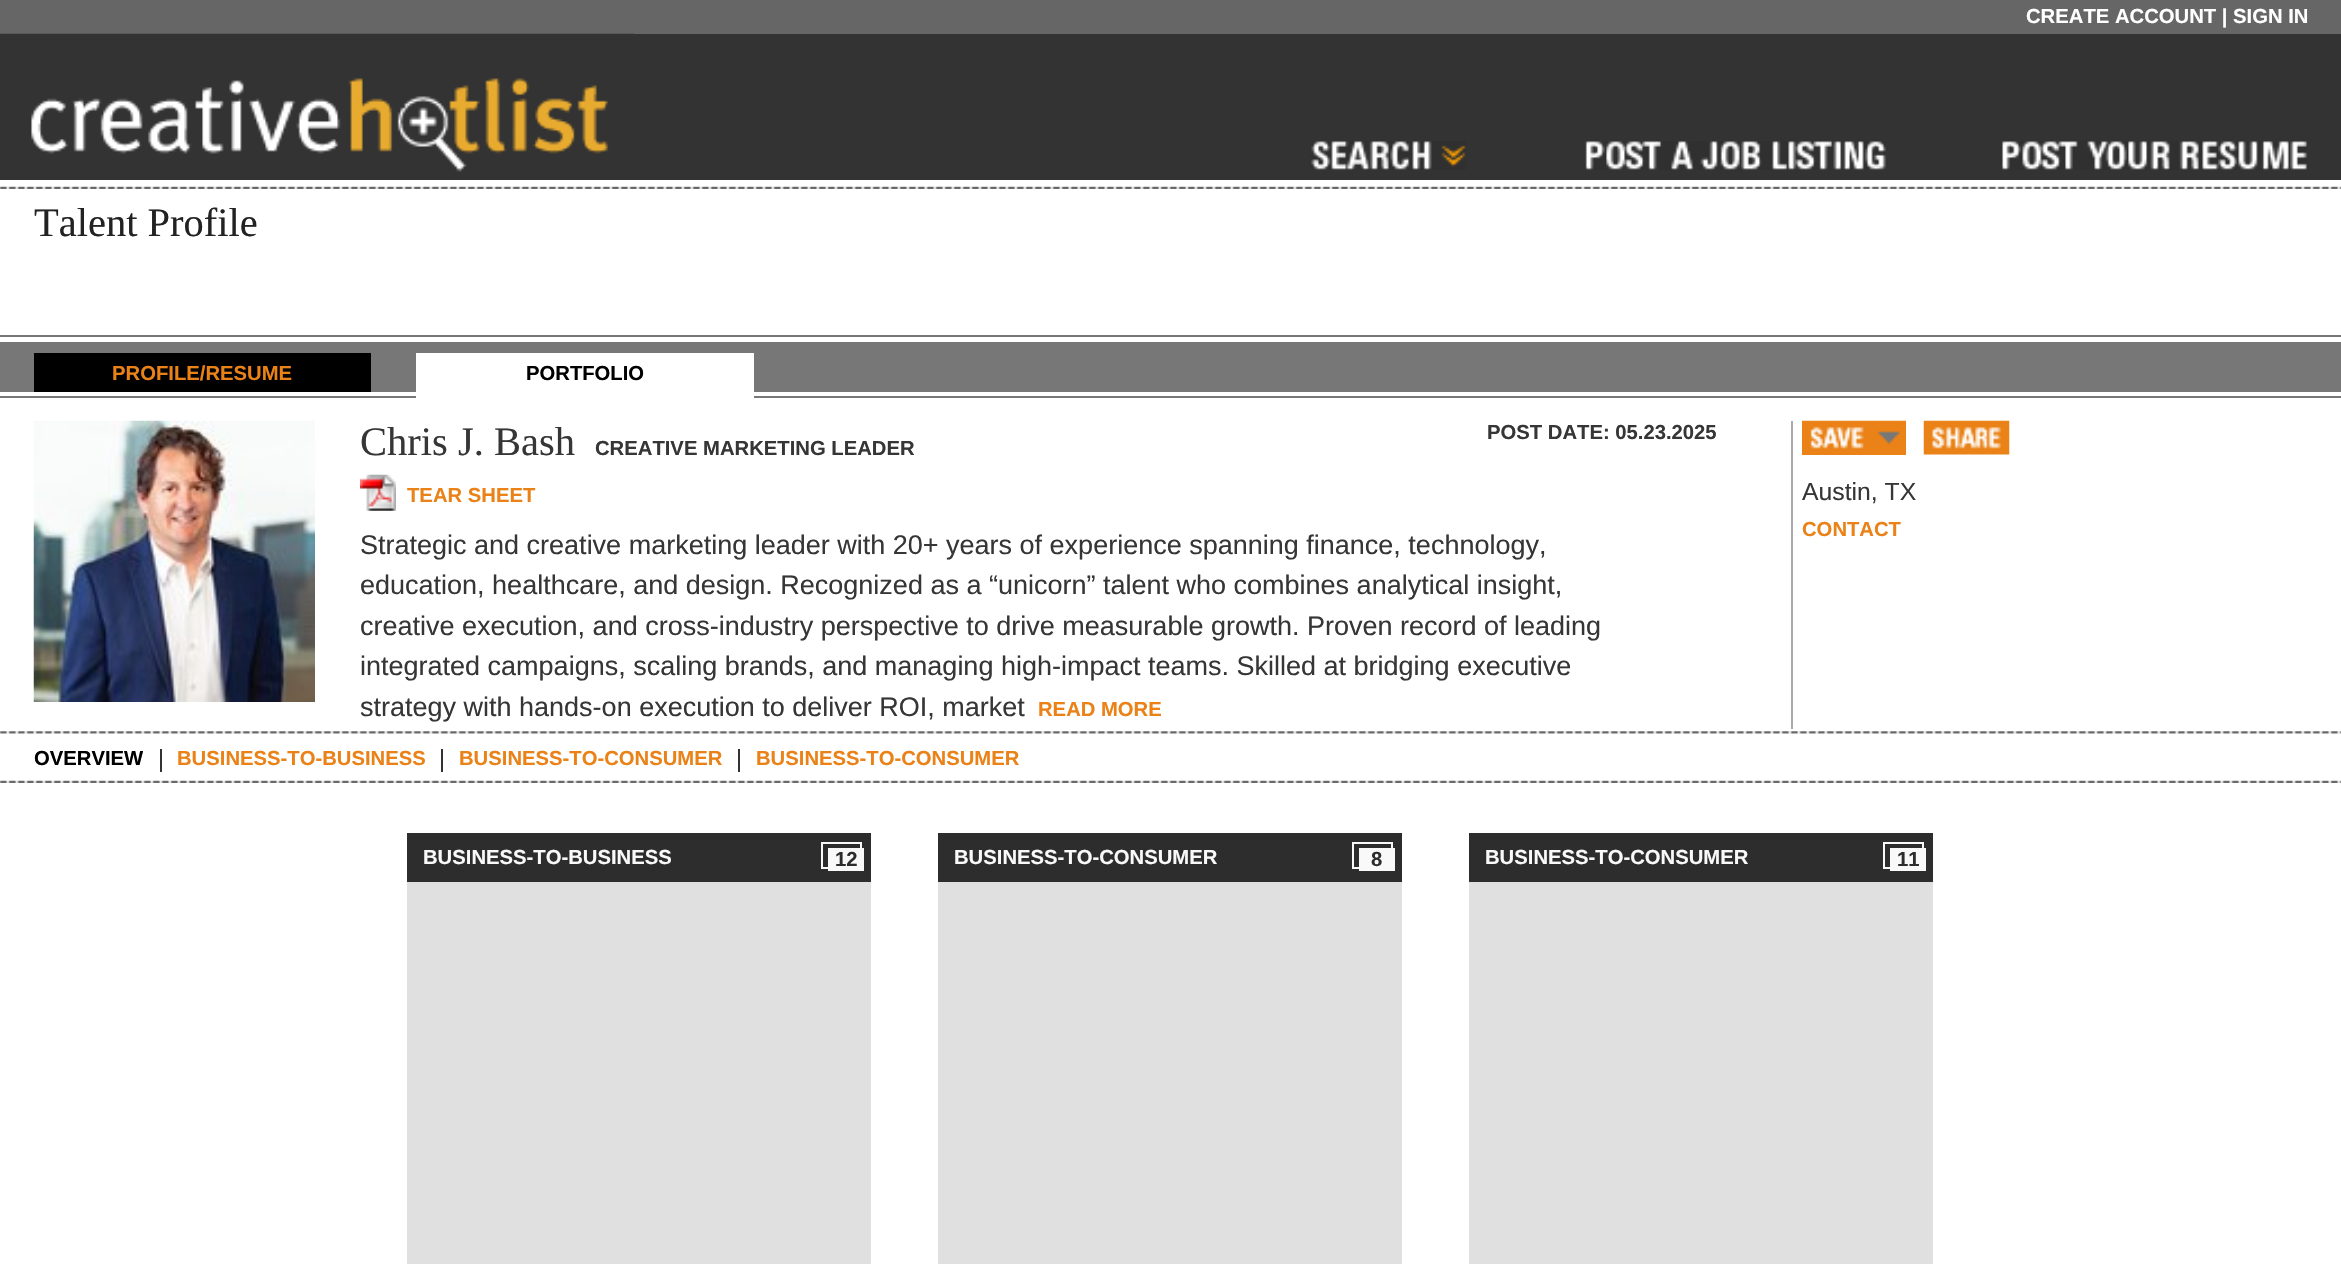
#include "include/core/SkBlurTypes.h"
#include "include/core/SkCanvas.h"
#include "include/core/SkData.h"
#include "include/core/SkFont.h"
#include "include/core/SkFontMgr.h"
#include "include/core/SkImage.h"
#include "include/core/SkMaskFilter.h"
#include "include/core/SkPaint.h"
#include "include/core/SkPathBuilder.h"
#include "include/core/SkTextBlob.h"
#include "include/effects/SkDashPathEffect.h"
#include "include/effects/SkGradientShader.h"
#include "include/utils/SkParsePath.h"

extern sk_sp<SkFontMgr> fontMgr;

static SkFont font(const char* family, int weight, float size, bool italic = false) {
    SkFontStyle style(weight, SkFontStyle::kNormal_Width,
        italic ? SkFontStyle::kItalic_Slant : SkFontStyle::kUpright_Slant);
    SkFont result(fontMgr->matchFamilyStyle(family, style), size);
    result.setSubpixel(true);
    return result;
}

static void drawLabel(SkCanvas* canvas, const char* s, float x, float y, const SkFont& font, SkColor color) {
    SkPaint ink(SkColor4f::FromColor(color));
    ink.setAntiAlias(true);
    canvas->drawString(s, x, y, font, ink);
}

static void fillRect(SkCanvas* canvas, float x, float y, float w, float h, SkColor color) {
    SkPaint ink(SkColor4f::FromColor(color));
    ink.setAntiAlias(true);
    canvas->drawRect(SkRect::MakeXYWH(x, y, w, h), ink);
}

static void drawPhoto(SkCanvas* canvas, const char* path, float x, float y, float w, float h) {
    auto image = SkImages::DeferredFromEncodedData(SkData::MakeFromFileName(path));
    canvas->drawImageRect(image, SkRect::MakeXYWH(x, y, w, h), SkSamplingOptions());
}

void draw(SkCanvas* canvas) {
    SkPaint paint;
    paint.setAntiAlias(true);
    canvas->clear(0xFFFFFFFF);
    fillRect(canvas, 0, 0, 2341, 34, 0xFF666666);
    SkFont font1 = font("Liberation Sans", 700, 20.25f);
    drawLabel(canvas, "CREATE ACCOUNT | SIGN IN", 2026, 23, font1, 0xFFFFFFFF);
    fillRect(canvas, 0, 34, 2341, 146, 0xFF333333);
    drawPhoto(canvas, "assets/img1.png", 0, 33, 635, 139);
    drawPhoto(canvas, "assets/img2.png", 1311, 141, 155, 29);
    drawPhoto(canvas, "assets/img3.png", 1585, 141, 301, 29);
    drawPhoto(canvas, "assets/img4.png", 2002, 141, 305, 29);
    drawPhoto(canvas, "assets/img5.png", 0, 186, 2341, 3);
    SkFont font2 = font("Liberation Serif", 400, 40.5f);
    drawLabel(canvas, "Talent Profile", 34, 236, font2, 0xFF222222);
    fillRect(canvas, 0, 335, 2341, 2, 0xFF777777);
    fillRect(canvas, 0, 396, 2341, 2, 0xFF777777);
    fillRect(canvas, 0, 342, 2341, 50, 0xFF777777);
    fillRect(canvas, 34, 353, 337, 39, 0xFF000000);
    drawLabel(canvas, "PROFILE/RESUME", 112, 380, font1, 0xFFEA8217);
    fillRect(canvas, 416, 353, 338, 45, 0xFFFFFFFF);
    drawLabel(canvas, "PORTFOLIO", 526, 380, font1, 0xFF000000);
    drawPhoto(canvas, "assets/img6.png", 33, 420, 282, 282);
    drawLabel(canvas, "Chris J. Bash", 360, 455, font2, 0xFF363636);
    drawLabel(canvas, "CREATIVE MARKETING LEADER", 595, 455, font1, 0xFF363636);
    drawPhoto(canvas, "assets/img7.png", 360, 474, 36, 37);
    drawLabel(canvas, "TEAR SHEET", 407, 502, font1, 0xFFEA8217);
    SkFont font3 = font("Liberation Sans", 400, 27);
    drawLabel(canvas, "Strategic and creative marketing leader with 20+ years of experience spanning finance, technology,", 360, 554, font3, 0xFF363636);
    drawLabel(canvas, "education, healthcare, and design. Recognized as a “unicorn” talent who combines analytical insight,", 360, 594, font3, 0xFF363636);
    drawLabel(canvas, "creative execution, and cross-industry perspective to drive measurable growth. Proven record of leading", 360, 635, font3, 0xFF363636);
    drawLabel(canvas, "integrated campaigns, scaling brands, and managing high-impact teams. Skilled at bridging executive", 360, 675, font3, 0xFF363636);
    drawLabel(canvas, "strategy with hands-on execution to deliver ROI, market", 360, 716, font3, 0xFF363636);
    drawLabel(canvas, "READ MORE", 1038, 716, font1, 0xFFEA8217);
    fillRect(canvas, 1791, 421, 2, 308, 0xFFAAAAAA);
    fillRect(canvas, 1802, 421, 104, 34, 0xFFEA8217);
    drawPhoto(canvas, "assets/img8.png", 1802, 420, 70, 29);
    drawLabel(canvas, "POST DATE: 05.23.2025", 1487, 439, font1, 0xFF363636);
    drawPhoto(canvas, "assets/img9.png", 1872, 420, 34, 24);
    drawPhoto(canvas, "assets/img10.png", 1923, 420, 87, 35);
    SkFont font4 = font("Liberation Sans", 400, 24.75f);
    drawLabel(canvas, "Austin, TX", 1802, 500, font4, 0xFF363636);
    drawLabel(canvas, "CONTACT", 1802, 536, font1, 0xFFEA8217);
    drawPhoto(canvas, "assets/img11.png", 0, 731, 2341, 3);
    drawLabel(canvas, "OVERVIEW", 34, 765, font1, 0xFF000000);
    fillRect(canvas, 160, 749, 2, 23, 0xFF333333);
    drawLabel(canvas, "BUSINESS-TO-BUSINESS", 177, 765, font1, 0xFFEA8217);
    fillRect(canvas, 441, 749, 2, 23, 0xFF333333);
    drawLabel(canvas, "BUSINESS-TO-CONSUMER", 459, 765, font1, 0xFFEA8217);
    fillRect(canvas, 738, 749, 2, 23, 0xFF333333);
    drawLabel(canvas, "BUSINESS-TO-CONSUMER", 756, 765, font1, 0xFFEA8217);
    drawPhoto(canvas, "assets/img5.png", 0, 780, 2341, 3);
    fillRect(canvas, 407, 882, 464, 382, 0xFFE0E0E0);
    fillRect(canvas, 407, 833, 464, 49, 0xFF2D2D2D);
    drawLabel(canvas, "BUSINESS-TO-BUSINESS", 423, 864, font1, 0xFFF9F9F9);
    paint.setStroke(true);
    paint.setStrokeWidth(2);
    paint.setColor(0xFFF9F9F9);
    canvas->drawRect(SkRect::MakeXYWH(822, 843, 39, 25), paint);
    fillRect(canvas, 828, 848, 36, 23, 0xFFF9F9F9);
    drawLabel(canvas, "12", 835, 866, font1, 0xFF2D2D2D);
    fillRect(canvas, 938, 882, 464, 382, 0xFFE0E0E0);
    fillRect(canvas, 938, 833, 464, 49, 0xFF2D2D2D);
    drawLabel(canvas, "BUSINESS-TO-CONSUMER", 954, 864, font1, 0xFFF9F9F9);
    canvas->drawRect(SkRect::MakeXYWH(1353, 843, 39, 25), paint);
    fillRect(canvas, 1359, 848, 36, 23, 0xFFF9F9F9);
    drawLabel(canvas, "8", 1371, 866, font1, 0xFF2D2D2D);
    fillRect(canvas, 1469, 882, 464, 382, 0xFFE0E0E0);
    fillRect(canvas, 1469, 833, 464, 49, 0xFF2D2D2D);
    drawLabel(canvas, "BUSINESS-TO-CONSUMER", 1485, 864, font1, 0xFFF9F9F9);
    canvas->drawRect(SkRect::MakeXYWH(1884, 843, 39, 25), paint);
    fillRect(canvas, 1890, 848, 36, 23, 0xFFF9F9F9);
    drawLabel(canvas, "11", 1897, 866, font1, 0xFF2D2D2D);
}
